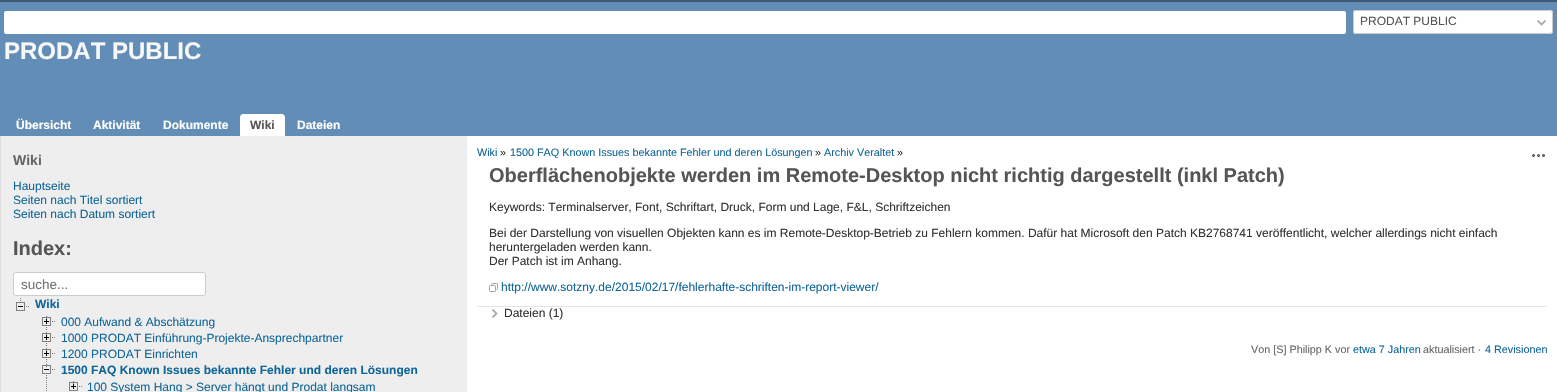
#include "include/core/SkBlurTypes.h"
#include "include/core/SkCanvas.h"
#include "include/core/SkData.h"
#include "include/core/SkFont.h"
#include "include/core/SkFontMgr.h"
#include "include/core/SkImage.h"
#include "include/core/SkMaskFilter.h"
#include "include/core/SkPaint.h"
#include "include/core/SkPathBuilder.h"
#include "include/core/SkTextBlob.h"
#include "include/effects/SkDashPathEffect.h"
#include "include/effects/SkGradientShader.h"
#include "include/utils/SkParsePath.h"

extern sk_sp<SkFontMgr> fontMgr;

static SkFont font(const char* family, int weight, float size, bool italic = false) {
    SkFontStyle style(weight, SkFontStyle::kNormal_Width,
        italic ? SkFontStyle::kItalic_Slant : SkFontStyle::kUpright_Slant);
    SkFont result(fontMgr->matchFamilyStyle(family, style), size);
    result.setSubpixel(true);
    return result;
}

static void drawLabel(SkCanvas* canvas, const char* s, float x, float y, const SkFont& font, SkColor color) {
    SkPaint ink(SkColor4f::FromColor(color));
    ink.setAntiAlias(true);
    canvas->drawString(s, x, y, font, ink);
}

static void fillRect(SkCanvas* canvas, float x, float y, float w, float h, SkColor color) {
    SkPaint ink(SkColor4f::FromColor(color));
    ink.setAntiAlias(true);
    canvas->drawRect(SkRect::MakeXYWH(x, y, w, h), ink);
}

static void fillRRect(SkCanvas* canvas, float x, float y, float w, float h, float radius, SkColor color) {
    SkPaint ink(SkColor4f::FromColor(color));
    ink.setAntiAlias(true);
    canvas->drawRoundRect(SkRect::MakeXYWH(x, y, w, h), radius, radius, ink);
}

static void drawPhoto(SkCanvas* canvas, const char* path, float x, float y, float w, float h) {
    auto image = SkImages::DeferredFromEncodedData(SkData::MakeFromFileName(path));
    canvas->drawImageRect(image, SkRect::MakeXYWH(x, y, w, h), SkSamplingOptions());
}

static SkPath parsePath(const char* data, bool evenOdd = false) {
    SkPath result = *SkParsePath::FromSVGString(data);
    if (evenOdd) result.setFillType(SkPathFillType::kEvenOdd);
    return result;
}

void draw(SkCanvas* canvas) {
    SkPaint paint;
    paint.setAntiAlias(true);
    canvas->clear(0xFFFFFFFF);
    fillRect(canvas, 0, 0, 1557, 2, 0xFF3E5B76);
    fillRect(canvas, 0, 2, 1557, 134, 0xFF628DB6);
    fillRRect(canvas, 4, 11, 1342, 23, 2, 0xFFFFFFFF);
    fillRRect(canvas, 1353, 10, 200, 24, 3, 0xFFFFFFFF);
    drawPhoto(canvas, "assets/img1.png", 1537, 20, 9, 6);
    paint.setStroke(true);
    paint.setStrokeWidth(1);
    paint.setColor(0xFFCCCCCC);
    canvas->drawRoundRect(SkRect::MakeXYWH(1353.5f, 10.5f, 199, 23), 2.5f, 2.5f, paint);
    SkFont font1 = font("Liberation Sans", 400, 12);
    drawLabel(canvas, "PRODAT PUBLIC", 1360, 25, font1, 0xFF555555);
    SkFont font2 = font("Liberation Sans", 700, 24);
    drawLabel(canvas, "PRODAT PUBLIC", 4, 59, font2, 0xFFF8F8F8);
    SkFont font3 = font("Liberation Sans", 700, 12);
    drawLabel(canvas, "Übersicht", 16, 129, font3, 0xFFFFFFFF);
    drawLabel(canvas, "Aktivität", 93, 129, font3, 0xFFFFFFFF);
    drawLabel(canvas, "Dokumente", 163, 129, font3, 0xFFFFFFFF);
    paint.setStroke(false);
    paint.setColor(0xFFFFFFFF);
    canvas->drawPath(parsePath("M243 114H282C283.5 114 285 115.5 285 117V136H240V117C240 115.5 241.5 114 243 114Z"), paint);
    drawLabel(canvas, "Wiki", 250, 129, font3, 0xFF555555);
    drawLabel(canvas, "Dateien", 297, 129, font3, 0xFFFFFFFF);
    fillRect(canvas, 1, 136, 466, 256, 0xFFEEEEEE);
    fillRect(canvas, 0, 136, 1, 256, 0xFFDDDDDD);
    SkFont font4 = font("Liberation Sans", 700, 14);
    drawLabel(canvas, "Wiki", 13, 165, font4, 0xFF666666);
    drawLabel(canvas, "Hauptseite", 13, 190, font1, 0xFF116699);
    drawLabel(canvas, "Seiten nach Titel sortiert", 13, 204, font1, 0xFF116699);
    drawLabel(canvas, "Seiten nach Datum sortiert", 13, 218, font1, 0xFF116699);
    SkFont font5 = font("Liberation Sans", 700, 20);
    drawLabel(canvas, "Index:", 13, 255, font5, 0xFF555555);
    canvas->drawRoundRect(SkRect::MakeXYWH(13.5f, 272.5f, 192, 23), 2.5f, 2.5f, paint);
    paint.setStroke(true);
    paint.setColor(0xFFCCCCCC);
    canvas->drawRoundRect(SkRect::MakeXYWH(13.5f, 272.5f, 192, 23), 2.5f, 2.5f, paint);
    SkFont font6 = font("Liberation Sans", 400, 13.5f);
    drawLabel(canvas, "suche...", 21, 289, font6, 0xFF757575);
    drawPhoto(canvas, "assets/img2.png", 16, 298, 13, 13);
    drawLabel(canvas, "Wiki", 35, 308, font3, 0xFF116699);
    drawPhoto(canvas, "assets/img3.png", 46, 316, 1, 3);
    drawPhoto(canvas, "assets/img4.png", 42, 317, 13, 13);
    drawLabel(canvas, "000 Aufwand & Abschätzung", 61, 326, font1, 0xFF116699);
    drawPhoto(canvas, "assets/img3.png", 46, 332, 1, 3);
    drawPhoto(canvas, "assets/img4.png", 42, 333, 13, 13);
    drawLabel(canvas, "1000 PRODAT Einführung-Projekte-Ansprechpartner", 61, 342, font1, 0xFF116699);
    drawPhoto(canvas, "assets/img3.png", 46, 348, 1, 3);
    drawPhoto(canvas, "assets/img4.png", 42, 349, 13, 13);
    drawLabel(canvas, "1200 PRODAT Einrichten", 61, 358, font1, 0xFF116699);
    drawPhoto(canvas, "assets/img5.png", 46, 364, 1, 27);
    drawPhoto(canvas, "assets/img6.png", 42, 365, 13, 13);
    drawLabel(canvas, "1500 FAQ Known Issues bekannte Fehler und deren Lösungen", 61, 374, font3, 0xFF116699);
    drawPhoto(canvas, "assets/img3.png", 73, 381, 1, 3);
    drawPhoto(canvas, "assets/img7.png", 69, 382, 13, 9);
    drawLabel(canvas, "100 System Hang > Server hängt und Prodat langsam", 87, 391, font1, 0xFF116699);
    SkFont font7 = font("Liberation Sans", 400, 10.8f);
    drawLabel(canvas, "Wiki", 477, 156, font7, 0xFF116699);
    drawLabel(canvas, "»", 500, 156, font7, 0xFF333333);
    drawLabel(canvas, "1500 FAQ Known Issues bekannte Fehler und deren Lösungen", 510, 156, font7, 0xFF116699);
    drawLabel(canvas, "»", 815, 156, font7, 0xFF333333);
    drawLabel(canvas, "Archiv Veraltet", 824, 156, font7, 0xFF116699);
    drawLabel(canvas, "»", 897, 156, font7, 0xFF333333);
    drawPhoto(canvas, "assets/img8.png", 1532, 154, 13, 3);
    drawLabel(canvas, "Oberflächenobjekte werden im Remote-Desktop nicht richtig dargestellt (inkl Patch)", 489, 182, font5, 0xFF555555);
    drawLabel(canvas, "Keywords: Terminalserver, Font, Schriftart, Druck, Form und Lage, F&L, Schriftzeichen", 489, 211, font1, 0xFF333333);
    drawLabel(canvas, "Bei der Darstellung von visuellen Objekten kann es im Remote-Desktop-Betrieb zu Fehlern kommen. Dafür hat Microsoft den Patch KB2768741 veröffentlicht, welcher allerdings nicht einfach", 489, 237, font1, 0xFF333333);
    drawLabel(canvas, "heruntergeladen werden kann.", 489, 251, font1, 0xFF333333);
    drawLabel(canvas, "Der Patch ist im Anhang.", 489, 265, font1, 0xFF333333);
    drawPhoto(canvas, "assets/img9.png", 489, 283, 9, 9);
    drawLabel(canvas, "http://www.sotzny.de/2015/02/17/fehlerhafte-schriften-im-report-viewer/", 501, 291, font1, 0xFF116699);
    fillRect(canvas, 477, 306, 1070, 1, 0xFFE4E4E4);
    drawPhoto(canvas, "assets/img10.png", 492, 309, 6, 9);
    drawLabel(canvas, "Dateien (1)", 504, 317, font1, 0xFF333333);
    drawLabel(canvas, "Von [S] Philipp K vor", 1251, 353, font7, 0xFF666666);
    drawLabel(canvas, "etwa 7 Jahren", 1353, 353, font7, 0xFF116699);
    drawLabel(canvas, "aktualisiert ·", 1423, 353, font7, 0xFF666666);
    drawLabel(canvas, "4 Revisionen", 1485, 353, font7, 0xFF116699);
}
